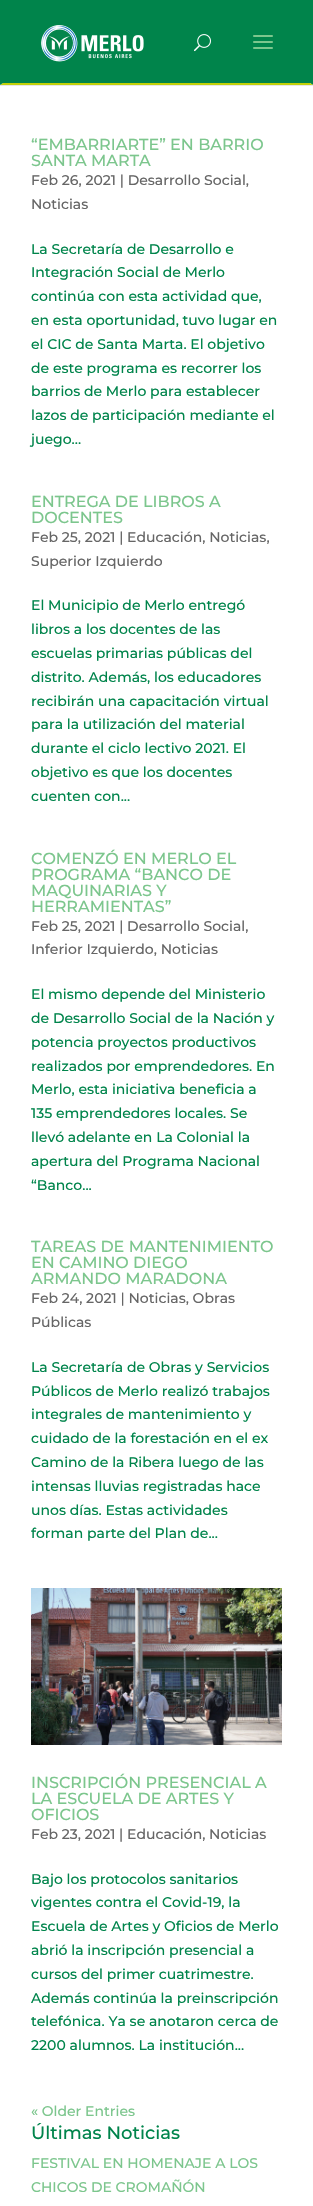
#include "include/core/SkBlurTypes.h"
#include "include/core/SkCanvas.h"
#include "include/core/SkData.h"
#include "include/core/SkFont.h"
#include "include/core/SkFontMgr.h"
#include "include/core/SkImage.h"
#include "include/core/SkMaskFilter.h"
#include "include/core/SkPaint.h"
#include "include/core/SkPathBuilder.h"
#include "include/core/SkTextBlob.h"
#include "include/effects/SkDashPathEffect.h"
#include "include/effects/SkGradientShader.h"
#include "include/utils/SkParsePath.h"

extern sk_sp<SkFontMgr> fontMgr;

static SkFont font(const char* family, int weight, float size, bool italic = false) {
    SkFontStyle style(weight, SkFontStyle::kNormal_Width,
        italic ? SkFontStyle::kItalic_Slant : SkFontStyle::kUpright_Slant);
    SkFont result(fontMgr->matchFamilyStyle(family, style), size);
    result.setSubpixel(true);
    return result;
}

static void drawLabel(SkCanvas* canvas, const char* s, float x, float y, const SkFont& font, SkColor color) {
    SkPaint ink(SkColor4f::FromColor(color));
    ink.setAntiAlias(true);
    canvas->drawString(s, x, y, font, ink);
}

static void fillRect(SkCanvas* canvas, float x, float y, float w, float h, SkColor color) {
    SkPaint ink(SkColor4f::FromColor(color));
    ink.setAntiAlias(true);
    canvas->drawRect(SkRect::MakeXYWH(x, y, w, h), ink);
}

static void drawPhoto(SkCanvas* canvas, const char* path, float x, float y, float w, float h) {
    auto image = SkImages::DeferredFromEncodedData(SkData::MakeFromFileName(path));
    canvas->drawImageRect(image, SkRect::MakeXYWH(x, y, w, h), SkSamplingOptions());
}

static SkPath parsePath(const char* data, bool evenOdd = false) {
    SkPath result = *SkParsePath::FromSVGString(data);
    if (evenOdd) result.setFillType(SkPathFillType::kEvenOdd);
    return result;
}

void draw(SkCanvas* canvas) {
    SkPaint paint;
    paint.setAntiAlias(true);
    canvas->clear(0xFFFFFFFF);
    fillRect(canvas, 0, 85, 313, 1, 0xFFE6E6E6);
    fillRect(canvas, 3, 3, 307, 80, 0xFF00844B);
    fillRect(canvas, 0, 0, 313, 3, 0xFF00844B);
    paint.setColor(0xFF00844B);
    canvas->drawPath(parsePath("M313 0V85L310 83V3Z"), paint);
    paint.setColor(0xFFC3D108);
    canvas->drawPath(parsePath("M313 85H0L3 83H310Z"), paint);
    paint.setColor(0xFF00844B);
    canvas->drawPath(parsePath("M0 85V0L3 3V83Z"), paint);
    drawPhoto(canvas, "assets/img1.png", 41, 25, 103, 37);
    drawPhoto(canvas, "assets/img2.png", 194, 34, 17, 18);
    drawPhoto(canvas, "assets/img3.png", 253, 35, 20, 14);
    SkFont font1 = font("Montserrat", 500, 16);
    drawLabel(canvas, "“EMBARRIARTE” EN BARRIO", 31, 150, font1, 0xFF7CC68D);
    drawLabel(canvas, "SANTA MARTA", 31, 166, font1, 0xFF7CC68D);
    SkFont font2 = font("Montserrat", 500, 14);
    drawLabel(canvas, "Feb 26, 2021 | Desarrollo Social,", 31, 185, font2, 0xFF666666);
    drawLabel(canvas, "Noticias", 31, 209, font2, 0xFF666666);
    drawLabel(canvas, "La Secretaría de Desarrollo e", 31, 254, font2, 0xFF00844B);
    drawLabel(canvas, "Integración Social de Merlo", 31, 277, font2, 0xFF00844B);
    drawLabel(canvas, "continúa con esta actividad que,", 31, 301, font2, 0xFF00844B);
    drawLabel(canvas, "en esta oportunidad, tuvo lugar en", 31, 325, font2, 0xFF00844B);
    drawLabel(canvas, "el CIC de Santa Marta. El objetivo", 31, 349, font2, 0xFF00844B);
    drawLabel(canvas, "de este programa es recorrer los", 31, 373, font2, 0xFF00844B);
    drawLabel(canvas, "barrios de Merlo para establecer", 31, 396, font2, 0xFF00844B);
    drawLabel(canvas, "lazos de participación mediante el", 31, 420, font2, 0xFF00844B);
    drawLabel(canvas, "juego...", 31, 444, font2, 0xFF00844B);
    drawLabel(canvas, "ENTREGA DE LIBROS A", 31, 507, font1, 0xFF7CC68D);
    drawLabel(canvas, "DOCENTES", 31, 523, font1, 0xFF7CC68D);
    drawLabel(canvas, "Feb 25, 2021 | Educación, Noticias,", 31, 542, font2, 0xFF666666);
    drawLabel(canvas, "Superior Izquierdo", 31, 566, font2, 0xFF666666);
    drawLabel(canvas, "El Municipio de Merlo entregó", 31, 610, font2, 0xFF00844B);
    drawLabel(canvas, "libros a los docentes de las", 31, 634, font2, 0xFF00844B);
    drawLabel(canvas, "escuelas primarias públicas del", 31, 658, font2, 0xFF00844B);
    drawLabel(canvas, "distrito. Además, los educadores", 31, 682, font2, 0xFF00844B);
    drawLabel(canvas, "recibirán una capacitación virtual", 31, 706, font2, 0xFF00844B);
    drawLabel(canvas, "para la utilización del material", 31, 729, font2, 0xFF00844B);
    drawLabel(canvas, "durante el ciclo lectivo 2021. El", 31, 753, font2, 0xFF00844B);
    drawLabel(canvas, "objetivo es que los docentes", 31, 777, font2, 0xFF00844B);
    drawLabel(canvas, "cuenten con...", 31, 801, font2, 0xFF00844B);
    drawLabel(canvas, "COMENZÓ EN MERLO EL", 31, 864, font1, 0xFF7CC68D);
    drawLabel(canvas, "PROGRAMA “BANCO DE", 31, 880, font1, 0xFF7CC68D);
    drawLabel(canvas, "MAQUINARIAS Y", 31, 896, font1, 0xFF7CC68D);
    drawLabel(canvas, "HERRAMIENTAS”", 31, 912, font1, 0xFF7CC68D);
    drawLabel(canvas, "Feb 25, 2021 | Desarrollo Social,", 31, 931, font2, 0xFF666666);
    drawLabel(canvas, "Inferior Izquierdo, Noticias", 31, 954, font2, 0xFF666666);
    drawLabel(canvas, "El mismo depende del Ministerio", 31, 999, font2, 0xFF00844B);
    drawLabel(canvas, "de Desarrollo Social de la Nación y", 31, 1023, font2, 0xFF00844B);
    drawLabel(canvas, "potencia proyectos productivos", 31, 1047, font2, 0xFF00844B);
    drawLabel(canvas, "realizados por emprendedores. En", 31, 1071, font2, 0xFF00844B);
    drawLabel(canvas, "Merlo, esta iniciativa beneficia a", 31, 1094, font2, 0xFF00844B);
    drawLabel(canvas, "135 emprendedores locales. Se", 31, 1118, font2, 0xFF00844B);
    drawLabel(canvas, "llevó adelante en La Colonial la", 31, 1142, font2, 0xFF00844B);
    drawLabel(canvas, "apertura del Programa Nacional", 31, 1166, font2, 0xFF00844B);
    drawLabel(canvas, "“Banco...", 31, 1190, font2, 0xFF00844B);
    drawLabel(canvas, "TAREAS DE MANTENIMIENTO", 31, 1252, font1, 0xFF7CC68D);
    drawLabel(canvas, "EN CAMINO DIEGO", 31, 1268, font1, 0xFF7CC68D);
    drawLabel(canvas, "ARMANDO MARADONA", 31, 1284, font1, 0xFF7CC68D);
    drawLabel(canvas, "Feb 24, 2021 | Noticias, Obras", 31, 1303, font2, 0xFF666666);
    drawLabel(canvas, "Públicas", 31, 1327, font2, 0xFF666666);
    drawLabel(canvas, "La Secretaría de Obras y Servicios", 31, 1372, font2, 0xFF00844B);
    drawLabel(canvas, "Públicos de Merlo realizó trabajos", 31, 1396, font2, 0xFF00844B);
    drawLabel(canvas, "integrales de mantenimiento y", 31, 1419, font2, 0xFF00844B);
    drawLabel(canvas, "cuidado de la forestación en el ex", 31, 1443, font2, 0xFF00844B);
    drawLabel(canvas, "Camino de la Ribera luego de las", 31, 1467, font2, 0xFF00844B);
    drawLabel(canvas, "intensas lluvias registradas hace", 31, 1491, font2, 0xFF00844B);
    drawLabel(canvas, "unos días. Estas actividades", 31, 1515, font2, 0xFF00844B);
    drawLabel(canvas, "forman parte del Plan de...", 31, 1538, font2, 0xFF00844B);
    drawPhoto(canvas, "assets/img4.png", 31, 1588, 251, 157);
    drawLabel(canvas, "INSCRIPCIÓN PRESENCIAL A", 31, 1788, font1, 0xFF7CC68D);
    drawLabel(canvas, "LA ESCUELA DE ARTES Y", 31, 1804, font1, 0xFF7CC68D);
    drawLabel(canvas, "OFICIOS", 31, 1820, font1, 0xFF7CC68D);
    drawLabel(canvas, "Feb 23, 2021 | Educación, Noticias", 31, 1839, font2, 0xFF666666);
    drawLabel(canvas, "Bajo los protocolos sanitarios", 31, 1884, font2, 0xFF00844B);
    drawLabel(canvas, "vigentes contra el Covid-19, la", 31, 1907, font2, 0xFF00844B);
    drawLabel(canvas, "Escuela de Artes y Oficios de Merlo", 31, 1931, font2, 0xFF00844B);
    drawLabel(canvas, "abrió la inscripción presencial a", 31, 1955, font2, 0xFF00844B);
    drawLabel(canvas, "cursos del primer cuatrimestre.", 31, 1979, font2, 0xFF00844B);
    drawLabel(canvas, "Además continúa la preinscripción", 31, 2003, font2, 0xFF00844B);
    drawLabel(canvas, "telefónica. Ya se anotaron cerca de", 31, 2026, font2, 0xFF00844B);
    drawLabel(canvas, "2200 alumnos. La institución...", 31, 2050, font2, 0xFF00844B);
    drawLabel(canvas, "« Older Entries", 31, 2116, font2, 0xFF7CC68D);
    SkFont font3 = font("Montserrat", 500, 18);
    drawLabel(canvas, "Últimas Noticias", 31, 2139, font3, 0xFF00844B);
    drawLabel(canvas, "FESTIVAL EN HOMENAJE A LOS", 31, 2168, font2, 0xFF7CC68D);
    drawLabel(canvas, "CHICOS DE CROMAÑÓN", 31, 2192, font2, 0xFF7CC68D);
}
